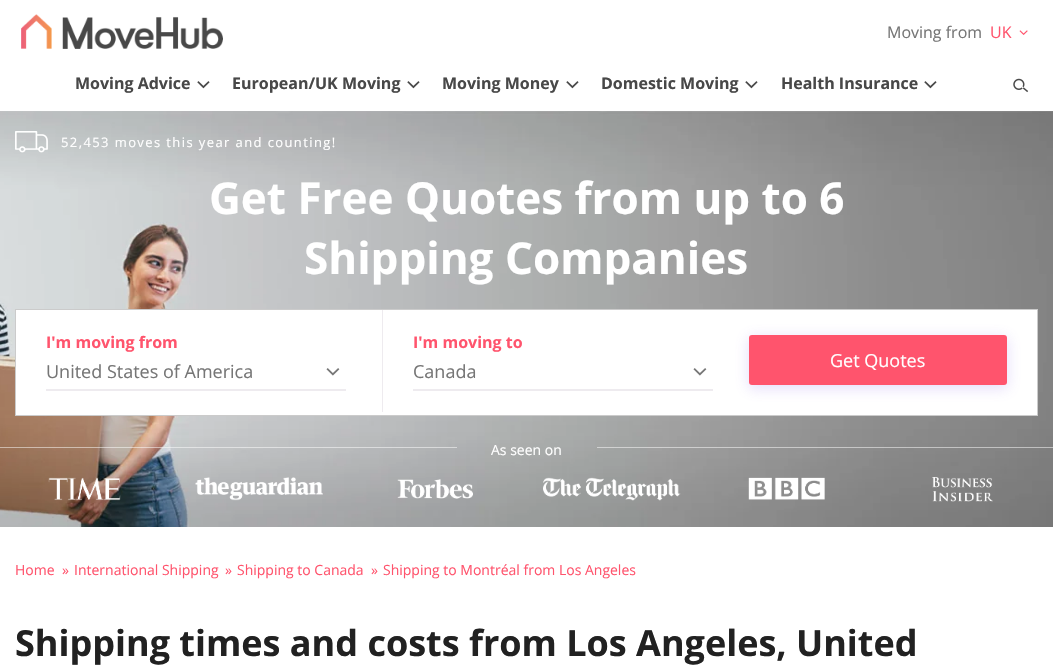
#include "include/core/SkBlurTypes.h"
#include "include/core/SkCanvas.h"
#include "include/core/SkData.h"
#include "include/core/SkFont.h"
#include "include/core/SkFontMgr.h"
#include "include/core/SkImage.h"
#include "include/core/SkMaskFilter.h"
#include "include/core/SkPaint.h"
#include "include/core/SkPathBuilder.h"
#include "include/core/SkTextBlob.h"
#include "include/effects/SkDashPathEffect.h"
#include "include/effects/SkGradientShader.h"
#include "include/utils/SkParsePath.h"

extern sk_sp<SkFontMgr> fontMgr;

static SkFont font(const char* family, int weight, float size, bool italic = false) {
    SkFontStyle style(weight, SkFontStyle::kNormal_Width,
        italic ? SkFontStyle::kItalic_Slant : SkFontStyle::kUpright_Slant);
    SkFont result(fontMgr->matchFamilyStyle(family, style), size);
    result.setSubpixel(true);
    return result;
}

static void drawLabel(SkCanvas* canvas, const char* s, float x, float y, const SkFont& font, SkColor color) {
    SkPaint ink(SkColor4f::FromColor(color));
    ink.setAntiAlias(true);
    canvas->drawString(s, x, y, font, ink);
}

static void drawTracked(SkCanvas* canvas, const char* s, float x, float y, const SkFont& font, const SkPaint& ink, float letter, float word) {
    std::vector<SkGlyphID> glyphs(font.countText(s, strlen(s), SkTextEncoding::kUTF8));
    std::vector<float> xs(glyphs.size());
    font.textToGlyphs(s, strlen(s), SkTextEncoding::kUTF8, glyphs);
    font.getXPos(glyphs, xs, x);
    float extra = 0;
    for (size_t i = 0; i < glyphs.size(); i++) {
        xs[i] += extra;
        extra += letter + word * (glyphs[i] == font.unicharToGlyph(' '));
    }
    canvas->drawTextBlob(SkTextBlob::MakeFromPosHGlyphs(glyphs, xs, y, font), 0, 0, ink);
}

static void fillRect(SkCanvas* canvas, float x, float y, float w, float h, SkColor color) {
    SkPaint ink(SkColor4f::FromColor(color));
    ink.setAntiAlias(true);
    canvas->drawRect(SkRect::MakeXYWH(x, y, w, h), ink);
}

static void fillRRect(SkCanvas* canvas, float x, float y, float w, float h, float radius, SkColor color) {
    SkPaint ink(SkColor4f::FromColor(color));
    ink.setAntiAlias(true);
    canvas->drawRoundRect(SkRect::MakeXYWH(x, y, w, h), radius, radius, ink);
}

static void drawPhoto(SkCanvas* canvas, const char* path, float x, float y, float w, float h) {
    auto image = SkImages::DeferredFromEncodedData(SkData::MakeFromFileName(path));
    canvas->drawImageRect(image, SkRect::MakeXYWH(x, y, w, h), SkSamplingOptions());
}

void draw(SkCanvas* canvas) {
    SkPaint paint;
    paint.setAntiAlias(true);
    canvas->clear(0xFFFFFFFF);
    drawPhoto(canvas, "assets/img1.png", 21, 14, 202, 35);
    SkFont font1 = font("Open Sans", 400, 16);
    drawLabel(canvas, "Moving from", 887, 38, font1, 0xFF767676);
    drawLabel(canvas, "UK", 990, 38, font1, 0xFFFF546D);
    drawPhoto(canvas, "assets/img2.png", 1019, 30, 9, 5);
    SkFont font2 = font("Open Sans", 700, 16);
    drawLabel(canvas, "Moving Advice", 75, 89, font2, 0xFF484848);
    drawPhoto(canvas, "assets/img3.png", 197, 81, 13, 8);
    drawLabel(canvas, "European/UK Moving", 232, 89, font2, 0xFF484848);
    drawPhoto(canvas, "assets/img3.png", 407, 81, 13, 8);
    drawLabel(canvas, "Moving Money", 442, 89, font2, 0xFF484848);
    drawPhoto(canvas, "assets/img3.png", 566, 81, 13, 8);
    drawLabel(canvas, "Domestic Moving", 601, 89, font2, 0xFF484848);
    drawPhoto(canvas, "assets/img3.png", 745, 81, 13, 8);
    drawLabel(canvas, "Health Insurance", 781, 89, font2, 0xFF484848);
    drawPhoto(canvas, "assets/img3.png", 924, 81, 13, 8);
    drawPhoto(canvas, "assets/img4.png", 1013, 78, 16, 15);
    drawPhoto(canvas, "assets/img5.png", 0, 111, 1053, 416);
    drawPhoto(canvas, "assets/img6.png", 15, 131, 33, 22);
    SkFont font3 = font("Open Sans", 400, 13);
    paint.setColor(0xFFFFFFFF);
    drawTracked(canvas, "52,453 moves this year and counting!", 61, 147, font3, paint, 1.4f, 0);
    SkFont font4 = font("Open Sans", 700, 44);
    drawLabel(canvas, "Get Free Quotes from up to 6", 209, 214, font4, 0xFFFFFFFF);
    drawLabel(canvas, "Shipping Companies", 304, 274, font4, 0xFFFFFFFF);
    canvas->drawRect(SkRect::MakeXYWH(15.5f, 309.5f, 1022, 106), paint);
    paint.setStroke(true);
    paint.setStrokeWidth(1);
    paint.setColor(0xFFCBCBCB);
    canvas->drawRect(SkRect::MakeXYWH(15.5f, 309.5f, 1022, 106), paint);
    fillRect(canvas, 382, 310, 1, 102, 0xFFEEEBEF);
    drawLabel(canvas, "I'm moving from", 46, 348, font2, 0xFFFF546D);
    drawPhoto(canvas, "assets/img7.png", 326, 368, 14, 8);
    fillRect(canvas, 46, 389, 300, 2, 0xFFEEEBEF);
    SkFont font5 = font("Open Sans", 400, 18);
    drawLabel(canvas, "United States of America", 46, 378, font5, 0xFF767676);
    drawLabel(canvas, "I'm moving to", 413, 348, font2, 0xFFFF546D);
    drawPhoto(canvas, "assets/img7.png", 693, 368, 14, 8);
    fillRect(canvas, 413, 389, 300, 2, 0xFFEEEBEF);
    drawLabel(canvas, "Canada", 413, 378, font5, 0xFF767676);
    paint.setStroke(false);
    paint.setColor(0xE6E4DBFB);
    paint.setMaskFilter(SkMaskFilter::MakeBlur(kNormal_SkBlurStyle, 7));
    canvas->drawRoundRect(SkRect::MakeXYWH(748, 337, 260, 52), 4, 4, paint);
    paint.setMaskFilter(nullptr);
    fillRRect(canvas, 749, 335, 258, 50, 3, 0xFFFF546D);
    drawLabel(canvas, "Get Quotes", 830, 367, font5, 0xFFFFFFFF);
    fillRect(canvas, 0, 447, 457, 1, 0x80FFFFFF);
    SkFont font6 = font("Open Sans", 400, 14);
    drawLabel(canvas, "As seen on", 491, 455, font6, 0xFFFFFFFF);
    fillRect(canvas, 597, 447, 456, 1, 0x80FFFFFF);
    drawPhoto(canvas, "assets/img8.png", 48, 477, 73, 24);
    drawPhoto(canvas, "assets/img9.png", 195, 477, 128, 24);
    drawPhoto(canvas, "assets/img10.png", 397, 479, 76, 20);
    drawPhoto(canvas, "assets/img11.png", 543, 477, 138, 24);
    drawPhoto(canvas, "assets/img12.png", 748, 477, 77, 23);
    drawPhoto(canvas, "assets/img13.png", 932, 477, 61, 25);
    drawLabel(canvas, "Home", 15, 575, font6, 0xFFFF546D);
    drawLabel(canvas, "»", 62, 575, font6, 0xFFFF546D);
    drawLabel(canvas, "International Shipping", 74, 575, font6, 0xFFFF546D);
    drawLabel(canvas, "»", 225, 575, font6, 0xFFFF546D);
    drawLabel(canvas, "Shipping to Canada", 237, 575, font6, 0xFFFF546D);
    drawLabel(canvas, "»", 371, 575, font6, 0xFFFF546D);
    drawLabel(canvas, "Shipping to Montréal from Los Angeles", 383, 575, font6, 0xFFFF546D);
    SkFont font7 = font("Open Sans", 700, 36);
    drawLabel(canvas, "Shipping times and costs from Los Angeles, United", 15, 656, font7, 0xFF212121);
}
